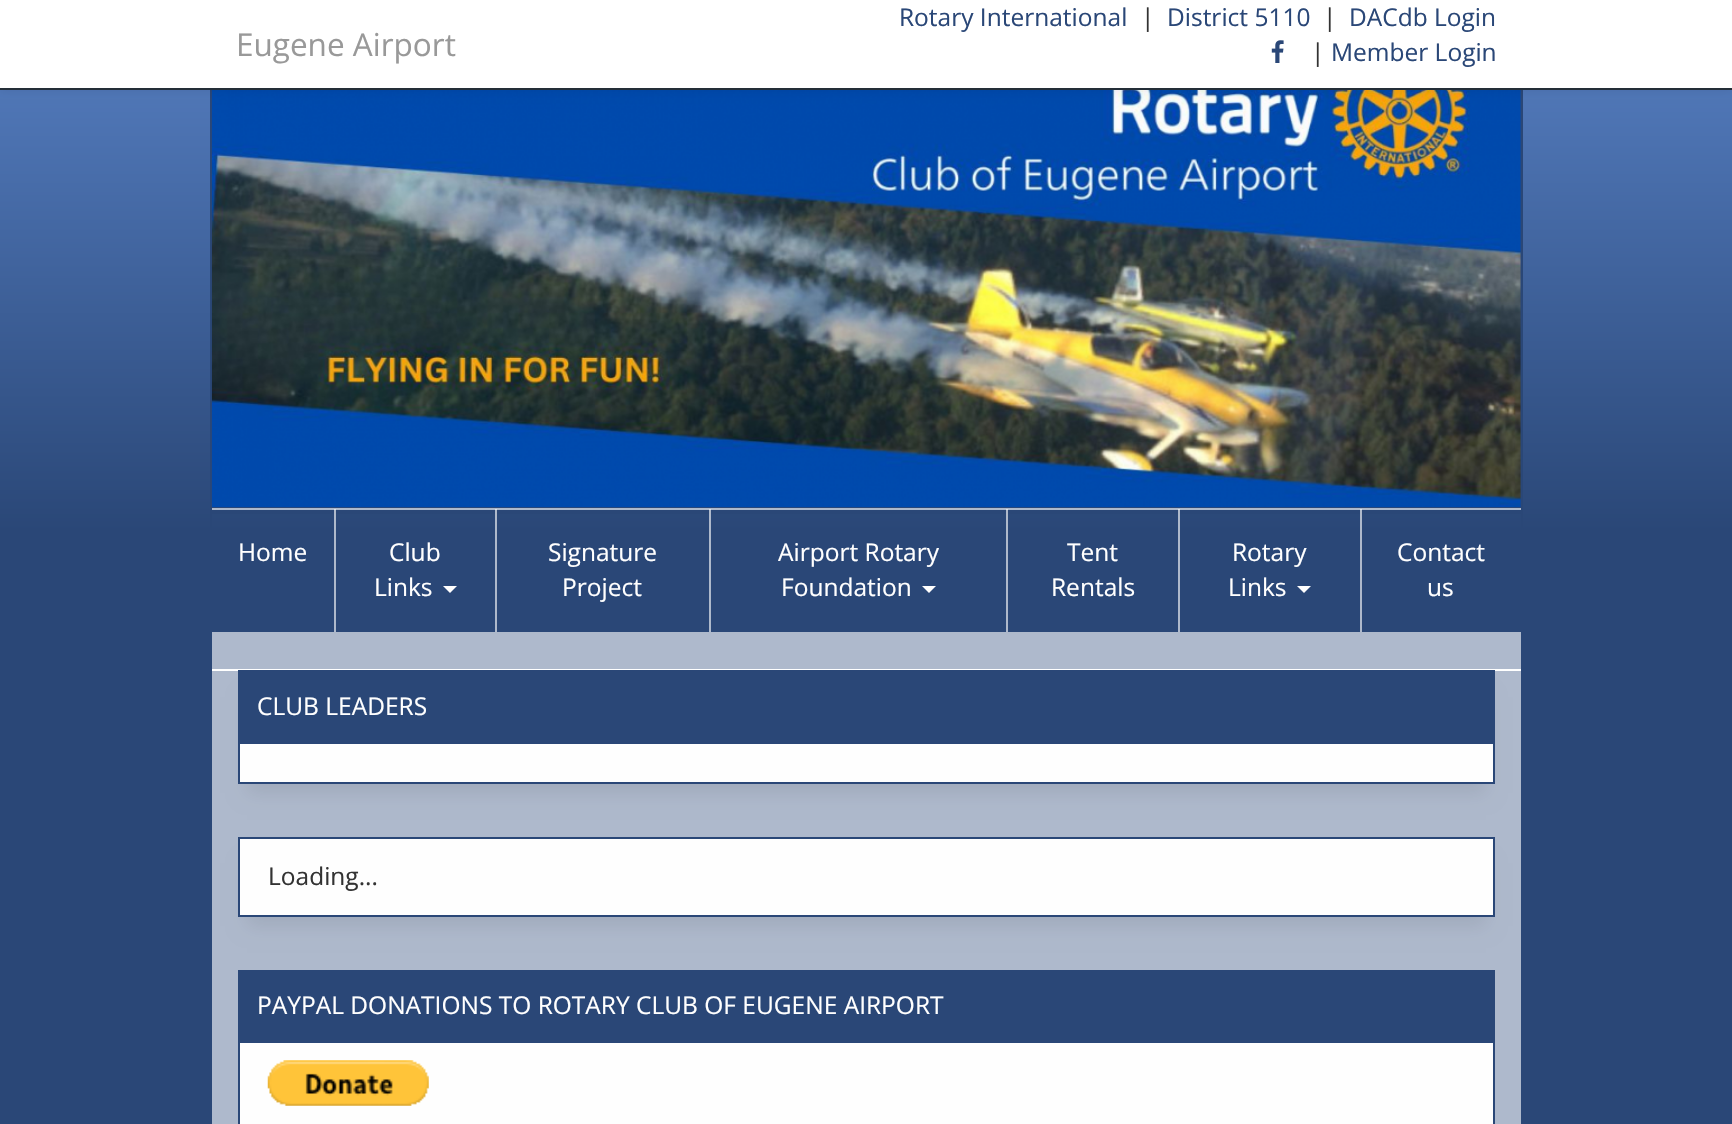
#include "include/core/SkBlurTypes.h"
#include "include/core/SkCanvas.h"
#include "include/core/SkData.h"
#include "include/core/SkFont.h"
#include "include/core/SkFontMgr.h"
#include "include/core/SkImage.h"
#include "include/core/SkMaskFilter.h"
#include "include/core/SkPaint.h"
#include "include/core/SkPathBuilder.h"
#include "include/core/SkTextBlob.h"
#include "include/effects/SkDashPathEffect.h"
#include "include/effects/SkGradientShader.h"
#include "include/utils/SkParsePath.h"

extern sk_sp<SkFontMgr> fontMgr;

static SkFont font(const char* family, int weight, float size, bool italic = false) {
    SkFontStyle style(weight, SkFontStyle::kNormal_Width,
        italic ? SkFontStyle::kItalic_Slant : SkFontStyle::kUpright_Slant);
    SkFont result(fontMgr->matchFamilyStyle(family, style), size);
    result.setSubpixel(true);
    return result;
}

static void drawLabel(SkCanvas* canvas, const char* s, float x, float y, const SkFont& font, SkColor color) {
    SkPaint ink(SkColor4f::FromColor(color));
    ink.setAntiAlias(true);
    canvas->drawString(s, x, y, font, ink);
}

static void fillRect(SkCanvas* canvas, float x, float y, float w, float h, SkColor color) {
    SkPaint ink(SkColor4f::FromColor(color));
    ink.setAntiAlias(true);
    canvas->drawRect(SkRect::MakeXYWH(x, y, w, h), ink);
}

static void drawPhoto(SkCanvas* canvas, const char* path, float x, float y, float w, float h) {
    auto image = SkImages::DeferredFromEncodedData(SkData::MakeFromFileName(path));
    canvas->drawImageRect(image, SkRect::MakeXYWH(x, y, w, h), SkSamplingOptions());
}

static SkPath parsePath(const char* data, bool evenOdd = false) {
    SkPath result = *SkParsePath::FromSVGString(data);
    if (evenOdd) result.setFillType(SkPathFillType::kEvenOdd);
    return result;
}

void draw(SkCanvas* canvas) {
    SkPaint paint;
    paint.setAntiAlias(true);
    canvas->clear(0xFFFFFFFF);
    {
        const SkColor colors[] = {0xFF4F76B6, 0xFF2A4777};
        const float stops[] = {0.06f, 0.2f};
        const SkPoint ends[] = {{866, -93}, {866, 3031}};
        paint.setShader(SkGradientShader::MakeLinear(ends, colors, stops, 2, SkTileMode::kClamp));
        paint.setAlpha(255);
    }
    canvas->drawRect(SkRect::MakeXYWH(0, 90, 1732, 1034), paint);
    paint.setStroke(true);
    paint.setStrokeWidth(2);
    paint.setShader(nullptr);
    paint.setColor(0xFF2A4777);
    canvas->drawRect(SkRect::MakeXYWH(211, 31, 1311, 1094), paint);
    fillRect(canvas, 212, 90, 1309, 418, 0xFF2A4777);
    drawPhoto(canvas, "assets/img2.png", 211, 90, 1310, 418);
    paint.setStroke(false);
    paint.setColor(0x12000000);
    paint.setMaskFilter(SkMaskFilter::MakeBlur(kNormal_SkBlurStyle, 4.5f));
    canvas->drawRect(SkRect::MakeXYWH(0, 2, 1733, 89), paint);
    paint.setMaskFilter(nullptr);
    fillRect(canvas, 0, 0, 1732, 88, 0xFFFFFFFF);
    fillRect(canvas, 0, 88, 1732, 2, 0xFF242E38);
    SkFont font1 = font("Open Sans", 400, 24.5f);
    drawLabel(canvas, "Rotary International", 899, 26, font1, 0xFF2A4777);
    drawLabel(canvas, "|", 1141, 26, font1, 0xFF333333);
    drawLabel(canvas, "District 5110", 1167, 26, font1, 0xFF2A4777);
    drawLabel(canvas, "|", 1323, 26, font1, 0xFF333333);
    drawLabel(canvas, "DACdb Login", 1349, 26, font1, 0xFF2A4777);
    SkFont font2 = font("Open Sans", 400, 31.5f);
    drawLabel(canvas, "Eugene Airport", 236, 56, font2, 0xFF999999);
    drawPhoto(canvas, "assets/img1.png", 1271, 40, 13, 23);
    drawLabel(canvas, "|", 1311, 61, font1, 0xFF333333);
    drawLabel(canvas, "Member Login", 1331, 61, font1, 0xFF2A4777);
    fillRect(canvas, 212, 510, 1309, 4, 0xFF2A4777);
    fillRect(canvas, 1360, 509, 2, 123, 0xFFAEB9CB);
    fillRect(canvas, 1178, 509, 2, 123, 0xFFAEB9CB);
    fillRect(canvas, 1006, 509, 2, 123, 0xFFAEB9CB);
    fillRect(canvas, 709, 509, 2, 123, 0xFFAEB9CB);
    fillRect(canvas, 495, 509, 2, 123, 0xFFAEB9CB);
    fillRect(canvas, 334, 509, 2, 123, 0xFFAEB9CB);
    fillRect(canvas, 212, 508, 1309, 2, 0xFFAEB9CB);
    fillRect(canvas, 1360, 509, 2, 1, 0xFFE0E4EB);
    fillRect(canvas, 1178, 509, 2, 1, 0xFFE0E4EB);
    fillRect(canvas, 1006, 509, 2, 1, 0xFFE0E4EB);
    fillRect(canvas, 709, 509, 2, 1, 0xFFE0E4EB);
    fillRect(canvas, 495, 509, 2, 1, 0xFFE0E4EB);
    fillRect(canvas, 334, 509, 2, 1, 0xFFE0E4EB);
    fillRect(canvas, 212, 632, 1309, 2, 0xFFAEB9CB);
    drawLabel(canvas, "Home", 238, 561, font1, 0xFFFFFFFF);
    drawLabel(canvas, "Club", 389, 561, font1, 0xFFFFFFFF);
    drawLabel(canvas, "Links", 374, 596, font1, 0xFFFFFFFF);
    paint.setColor(0xFFFFFFFF);
    canvas->drawPath(parsePath("M443 586H457L450 593Z"), paint);
    drawLabel(canvas, "Signature", 548, 561, font1, 0xFFFFFFFF);
    drawLabel(canvas, "Project", 562, 596, font1, 0xFFFFFFFF);
    drawLabel(canvas, "Airport Rotary", 778, 561, font1, 0xFFFFFFFF);
    drawLabel(canvas, "Foundation", 781, 596, font1, 0xFFFFFFFF);
    canvas->drawPath(parsePath("M922 586H936L929 593Z"), paint);
    drawLabel(canvas, "Tent", 1067, 561, font1, 0xFFFFFFFF);
    drawLabel(canvas, "Rentals", 1051, 596, font1, 0xFFFFFFFF);
    drawLabel(canvas, "Rotary", 1232, 561, font1, 0xFFFFFFFF);
    drawLabel(canvas, "Links", 1228, 596, font1, 0xFFFFFFFF);
    canvas->drawPath(parsePath("M1297 586H1311L1304 593Z"), paint);
    drawLabel(canvas, "Contact", 1397, 561, font1, 0xFFFFFFFF);
    drawLabel(canvas, "us", 1427, 596, font1, 0xFFFFFFFF);
    fillRect(canvas, 212, 634, 1309, 490, 0xFFAEB9CC);
    fillRect(canvas, 212, 669, 1309, 2, 0xFFFFFFFF);
    paint.setColor(0x14000000);
    paint.setMaskFilter(SkMaskFilter::MakeBlur(kNormal_SkBlurStyle, 9));
    canvas->drawRect(SkRect::MakeXYWH(247, 697, 1239, 96), paint);
    paint.setMaskFilter(nullptr);
    fillRect(canvas, 240, 744, 1253, 38, 0xFFFEFEFE);
    paint.setStroke(true);
    paint.setColor(0xFF2A4777);
    canvas->drawRect(SkRect::MakeXYWH(239, 671, 1255, 112), paint);
    fillRect(canvas, 240, 672, 1253, 72, 0xFF2A4777);
    drawLabel(canvas, "CLUB LEADERS", 257, 715, font1, 0xFFFFFFFF);
    paint.setStroke(false);
    paint.setColor(0x14000000);
    paint.setMaskFilter(SkMaskFilter::MakeBlur(kNormal_SkBlurStyle, 9));
    canvas->drawRect(SkRect::MakeXYWH(247, 863, 1239, 63), paint);
    paint.setMaskFilter(nullptr);
    paint.setColor(0xFFFEFEFE);
    canvas->drawRect(SkRect::MakeXYWH(239, 838, 1255, 78), paint);
    paint.setStroke(true);
    paint.setColor(0xFF2A4777);
    canvas->drawRect(SkRect::MakeXYWH(239, 838, 1255, 78), paint);
    drawLabel(canvas, "Loading...", 268, 885, font1, 0xFF333333);
    fillRect(canvas, 240, 1043, 1253, 81, 0xFFFEFEFE);
    canvas->drawRect(SkRect::MakeXYWH(239, 971, 1255, 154), paint);
    fillRect(canvas, 240, 972, 1253, 71, 0xFF2A4777);
    drawLabel(canvas, "PAYPAL DONATIONS TO ROTARY CLUB OF EUGENE AIRPORT", 257, 1014, font1, 0xFFFFFFFF);
    drawPhoto(canvas, "assets/img3.png", 267, 1060, 162, 46);
}
